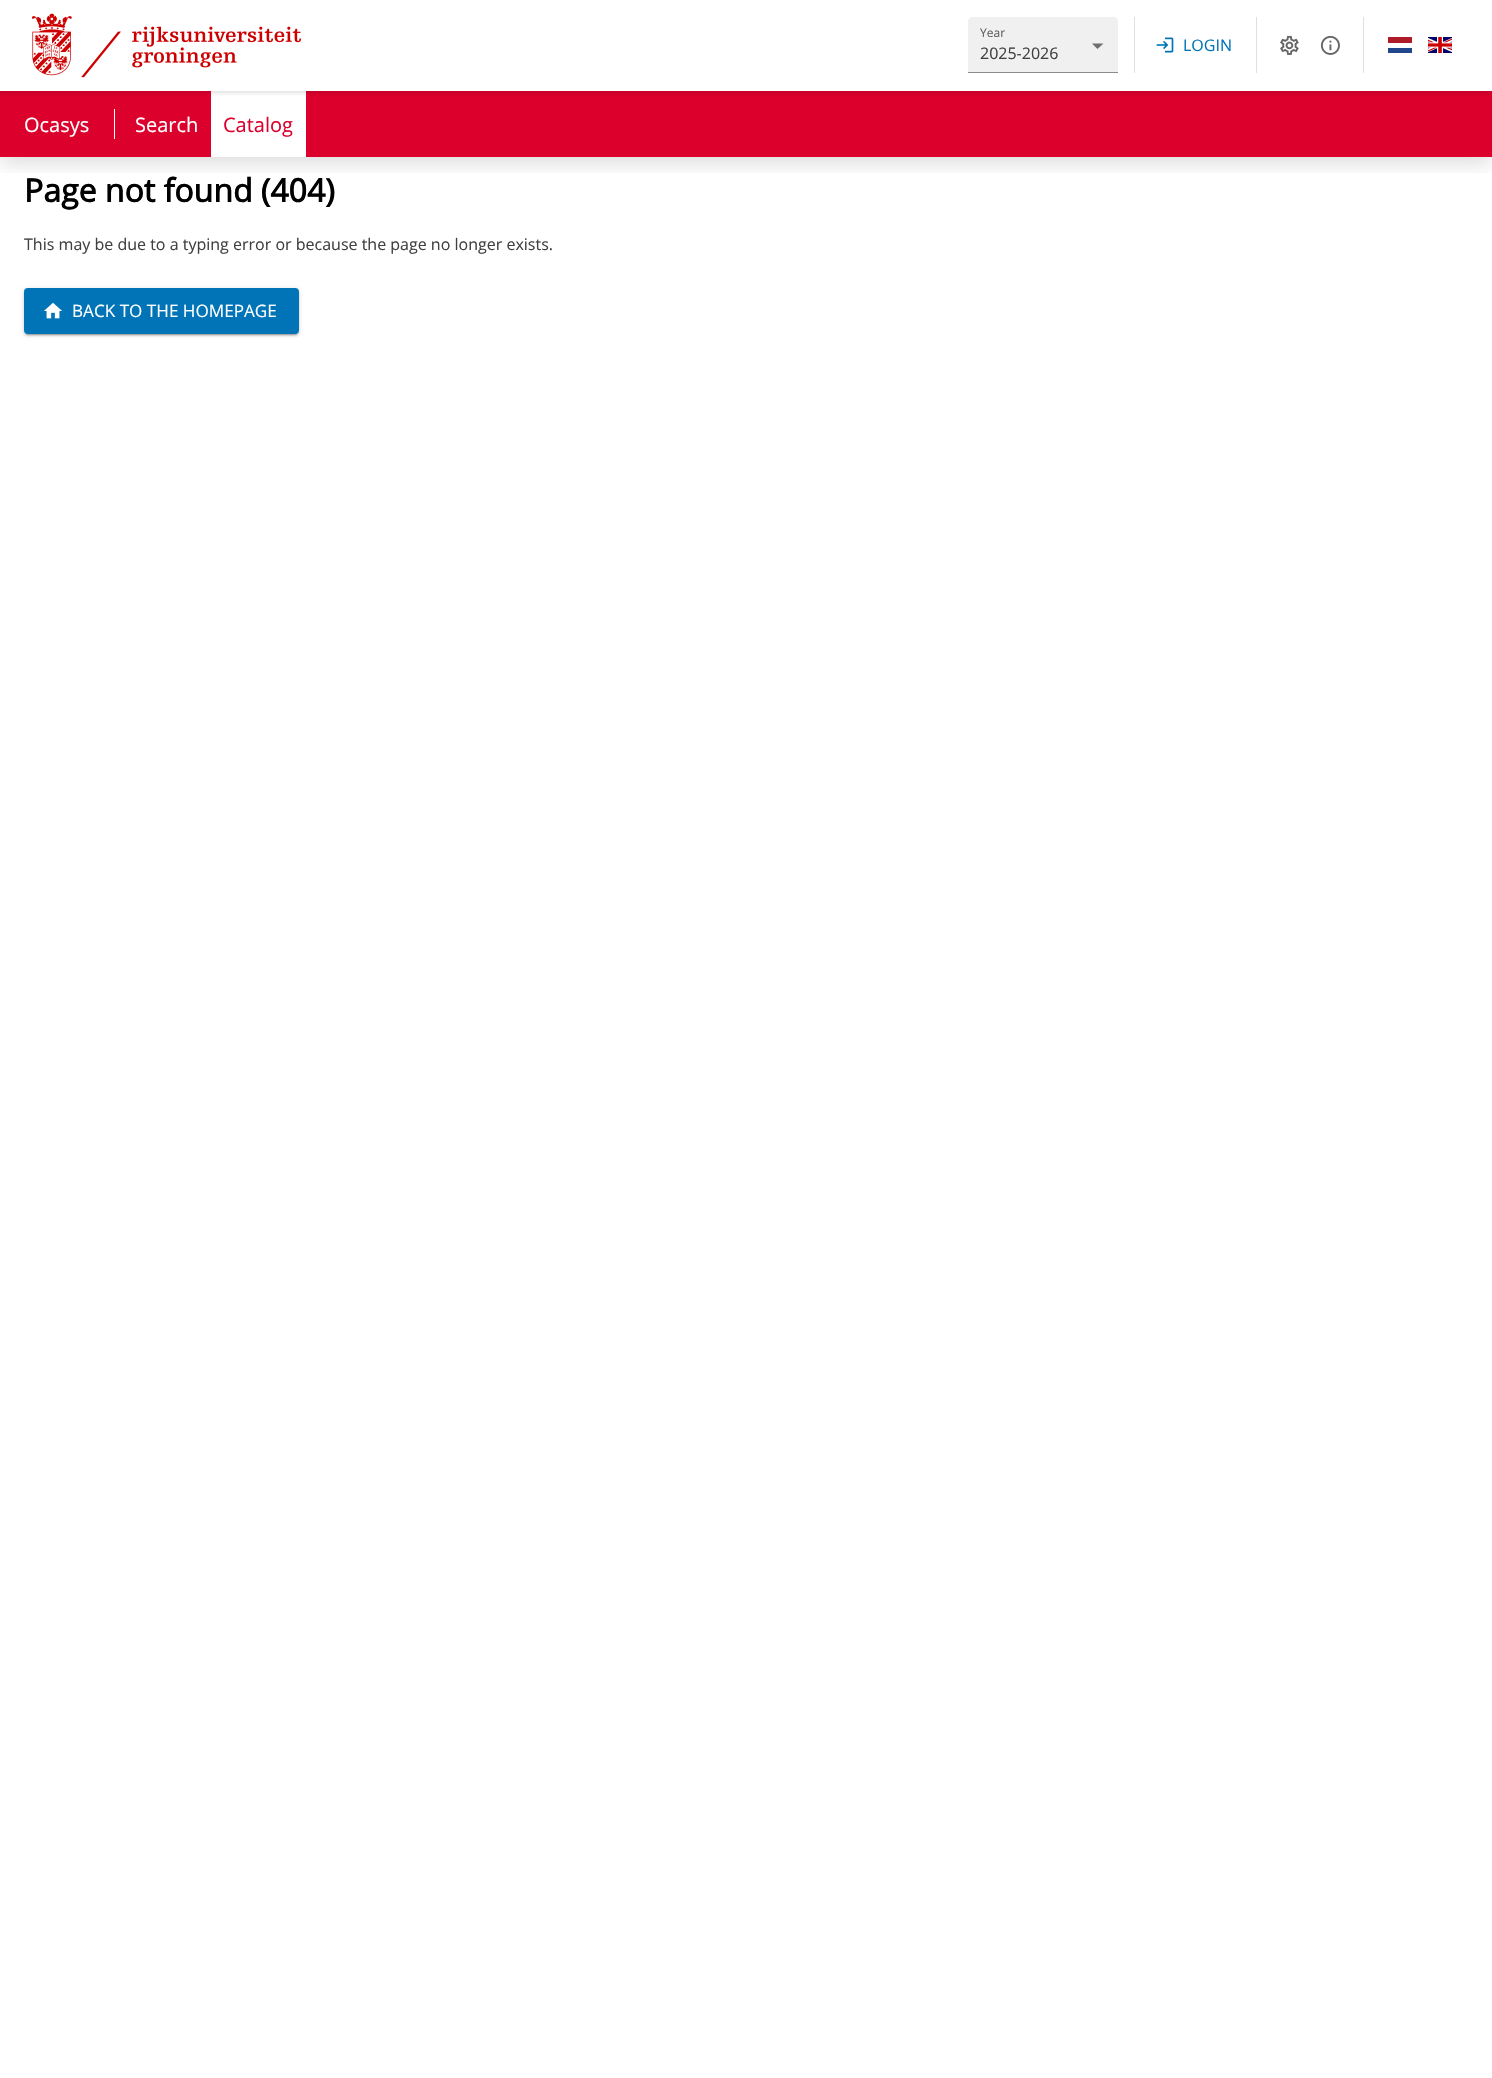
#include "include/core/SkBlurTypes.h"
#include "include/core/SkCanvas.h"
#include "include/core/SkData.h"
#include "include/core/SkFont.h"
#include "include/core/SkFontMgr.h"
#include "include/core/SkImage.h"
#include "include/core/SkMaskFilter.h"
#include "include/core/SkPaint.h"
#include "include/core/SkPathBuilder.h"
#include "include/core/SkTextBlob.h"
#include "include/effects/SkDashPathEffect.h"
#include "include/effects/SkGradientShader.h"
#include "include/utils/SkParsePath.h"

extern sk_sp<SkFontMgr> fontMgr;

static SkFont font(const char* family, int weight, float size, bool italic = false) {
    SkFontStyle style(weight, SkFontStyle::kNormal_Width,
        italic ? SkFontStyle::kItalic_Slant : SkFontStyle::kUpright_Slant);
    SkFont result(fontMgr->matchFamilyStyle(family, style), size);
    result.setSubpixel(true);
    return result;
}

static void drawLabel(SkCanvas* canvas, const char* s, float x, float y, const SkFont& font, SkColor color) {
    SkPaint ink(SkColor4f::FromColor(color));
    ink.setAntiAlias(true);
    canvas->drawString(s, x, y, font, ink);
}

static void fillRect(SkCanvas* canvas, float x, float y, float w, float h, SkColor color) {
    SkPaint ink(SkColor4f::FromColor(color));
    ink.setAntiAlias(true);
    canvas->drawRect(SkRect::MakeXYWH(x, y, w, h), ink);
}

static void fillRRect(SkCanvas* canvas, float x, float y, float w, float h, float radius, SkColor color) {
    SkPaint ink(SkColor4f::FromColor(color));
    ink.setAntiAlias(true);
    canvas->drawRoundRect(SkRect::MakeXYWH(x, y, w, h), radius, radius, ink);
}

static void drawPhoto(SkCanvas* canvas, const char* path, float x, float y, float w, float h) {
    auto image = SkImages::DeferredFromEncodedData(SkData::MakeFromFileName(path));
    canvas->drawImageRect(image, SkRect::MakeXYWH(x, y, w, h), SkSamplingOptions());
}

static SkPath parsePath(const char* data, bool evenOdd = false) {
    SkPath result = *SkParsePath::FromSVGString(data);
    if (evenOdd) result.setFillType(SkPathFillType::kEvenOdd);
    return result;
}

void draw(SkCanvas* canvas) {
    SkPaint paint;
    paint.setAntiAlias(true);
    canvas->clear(0xFFFFFFFF);
    canvas->save();
    canvas->clipRect(SkRect::MakeXYWH(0, 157, 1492, 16));
    paint.setColor(0x26000000);
    paint.setMaskFilter(SkMaskFilter::MakeBlur(kNormal_SkBlurStyle, 10));
    canvas->drawRect(SkRect::MakeXYWH(0, 5, 1492, 157), paint);
    paint.setMaskFilter(nullptr);
    canvas->restore();
    drawPhoto(canvas, "assets/img1.png", 32, 13, 270, 65);
    paint.setColor(0xFFF0F0F0);
    canvas->drawPath(parsePath("M972 17H1114C1116 17 1118 19 1118 21V73H968V21C968 19 970 17 972 17Z"), paint);
    SkFont font1 = font("Open Sans", 400, 12);
    drawLabel(canvas, "Year", 980, 37, font1, 0xFF606060);
    paint.setColor(0xFF6E6E6E);
    canvas->drawPath(parsePath("M1092 43.5L1097.5 49L1103.5 43.5Z"), paint);
    SkFont font2 = font("Open Sans", 400, 16);
    drawLabel(canvas, "2025-2026", 980, 59, font2, 0xFF404040);
    fillRect(canvas, 968, 72, 150, 1, 0xFF8B8B8B);
    fillRect(canvas, 1134, 17, 1, 56, 0xFFE0E0E0);
    drawPhoto(canvas, "assets/img2.png", 1156, 37, 18, 16);
    drawLabel(canvas, "LOGIN", 1183, 51, font2, 0xFF0074B6);
    fillRect(canvas, 1256, 17, 1, 56, 0xFFE0E0E0);
    drawPhoto(canvas, "assets/img3.png", 1280, 35, 19, 20);
    drawPhoto(canvas, "assets/img4.png", 1320, 35, 20, 20);
    fillRect(canvas, 1363, 17, 1, 56, 0xFFE0E0E0);
    fillRect(canvas, 1388, 48, 24, 5, 0xFF21468B);
    fillRect(canvas, 1388, 37, 24, 6, 0xFFAE1C28);
    drawPhoto(canvas, "assets/img5.png", 1428, 37, 24, 16);
    fillRect(canvas, 0, 91, 1492, 66, 0xFFDC002D);
    fillRect(canvas, 211, 91, 95, 66, 0xFFFFFFFF);
    canvas->save();
    canvas->clipRect(SkRect::MakeXYWH(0, 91, 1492, 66));
    paint.setColor(0x40000000);
    paint.setMaskFilter(SkMaskFilter::MakeBlur(kNormal_SkBlurStyle, 2));
    canvas->drawRect(SkRect::MakeXYWH(-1, 90, 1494, 2), paint);
    paint.setMaskFilter(nullptr);
    canvas->restore();
    fillRect(canvas, 114, 109, 1, 30, 0xFFFFFFFF);
    SkFont font3 = font("Open Sans", 400, 20);
    drawLabel(canvas, "Ocasys", 24, 132, font3, 0xFFFFFFFF);
    drawLabel(canvas, "Search", 135, 132, font3, 0xFFFFFFFF);
    drawLabel(canvas, "Catalog", 223, 132, font3, 0xFFDC002D);
    SkFont font4 = font("Open Sans", 700, 32);
    drawLabel(canvas, "Page not found (404)", 24, 202, font4, 0xFF000000);
    drawLabel(canvas, "This may be due to a typing error or because the page no longer exists.", 24, 250, font2, 0xFF404040);
    paint.setColor(0x1F000000);
    paint.setMaskFilter(SkMaskFilter::MakeBlur(kNormal_SkBlurStyle, 2.5f));
    canvas->drawRoundRect(SkRect::MakeXYWH(24, 289, 275, 46), 4, 4, paint);
    paint.setMaskFilter(nullptr);
    paint.setColor(0x24000000);
    paint.setMaskFilter(SkMaskFilter::MakeBlur(kNormal_SkBlurStyle, 1));
    canvas->drawRoundRect(SkRect::MakeXYWH(24, 290, 275, 46), 4, 4, paint);
    paint.setMaskFilter(nullptr);
    paint.setColor(0x33000000);
    paint.setMaskFilter(SkMaskFilter::MakeBlur(kNormal_SkBlurStyle, 0.5f));
    canvas->drawRoundRect(SkRect::MakeXYWH(26, 293, 271, 42), 2, 2, paint);
    paint.setMaskFilter(nullptr);
    fillRRect(canvas, 24, 288, 275, 46, 4, 0xFF0074B6);
    drawPhoto(canvas, "assets/img6.png", 44, 302, 18, 17);
    SkFont font5 = font("Open Sans", 400, 17.1f);
    drawLabel(canvas, "BACK TO THE HOMEPAGE", 72, 317, font5, 0xFFFFFFFF);
}
